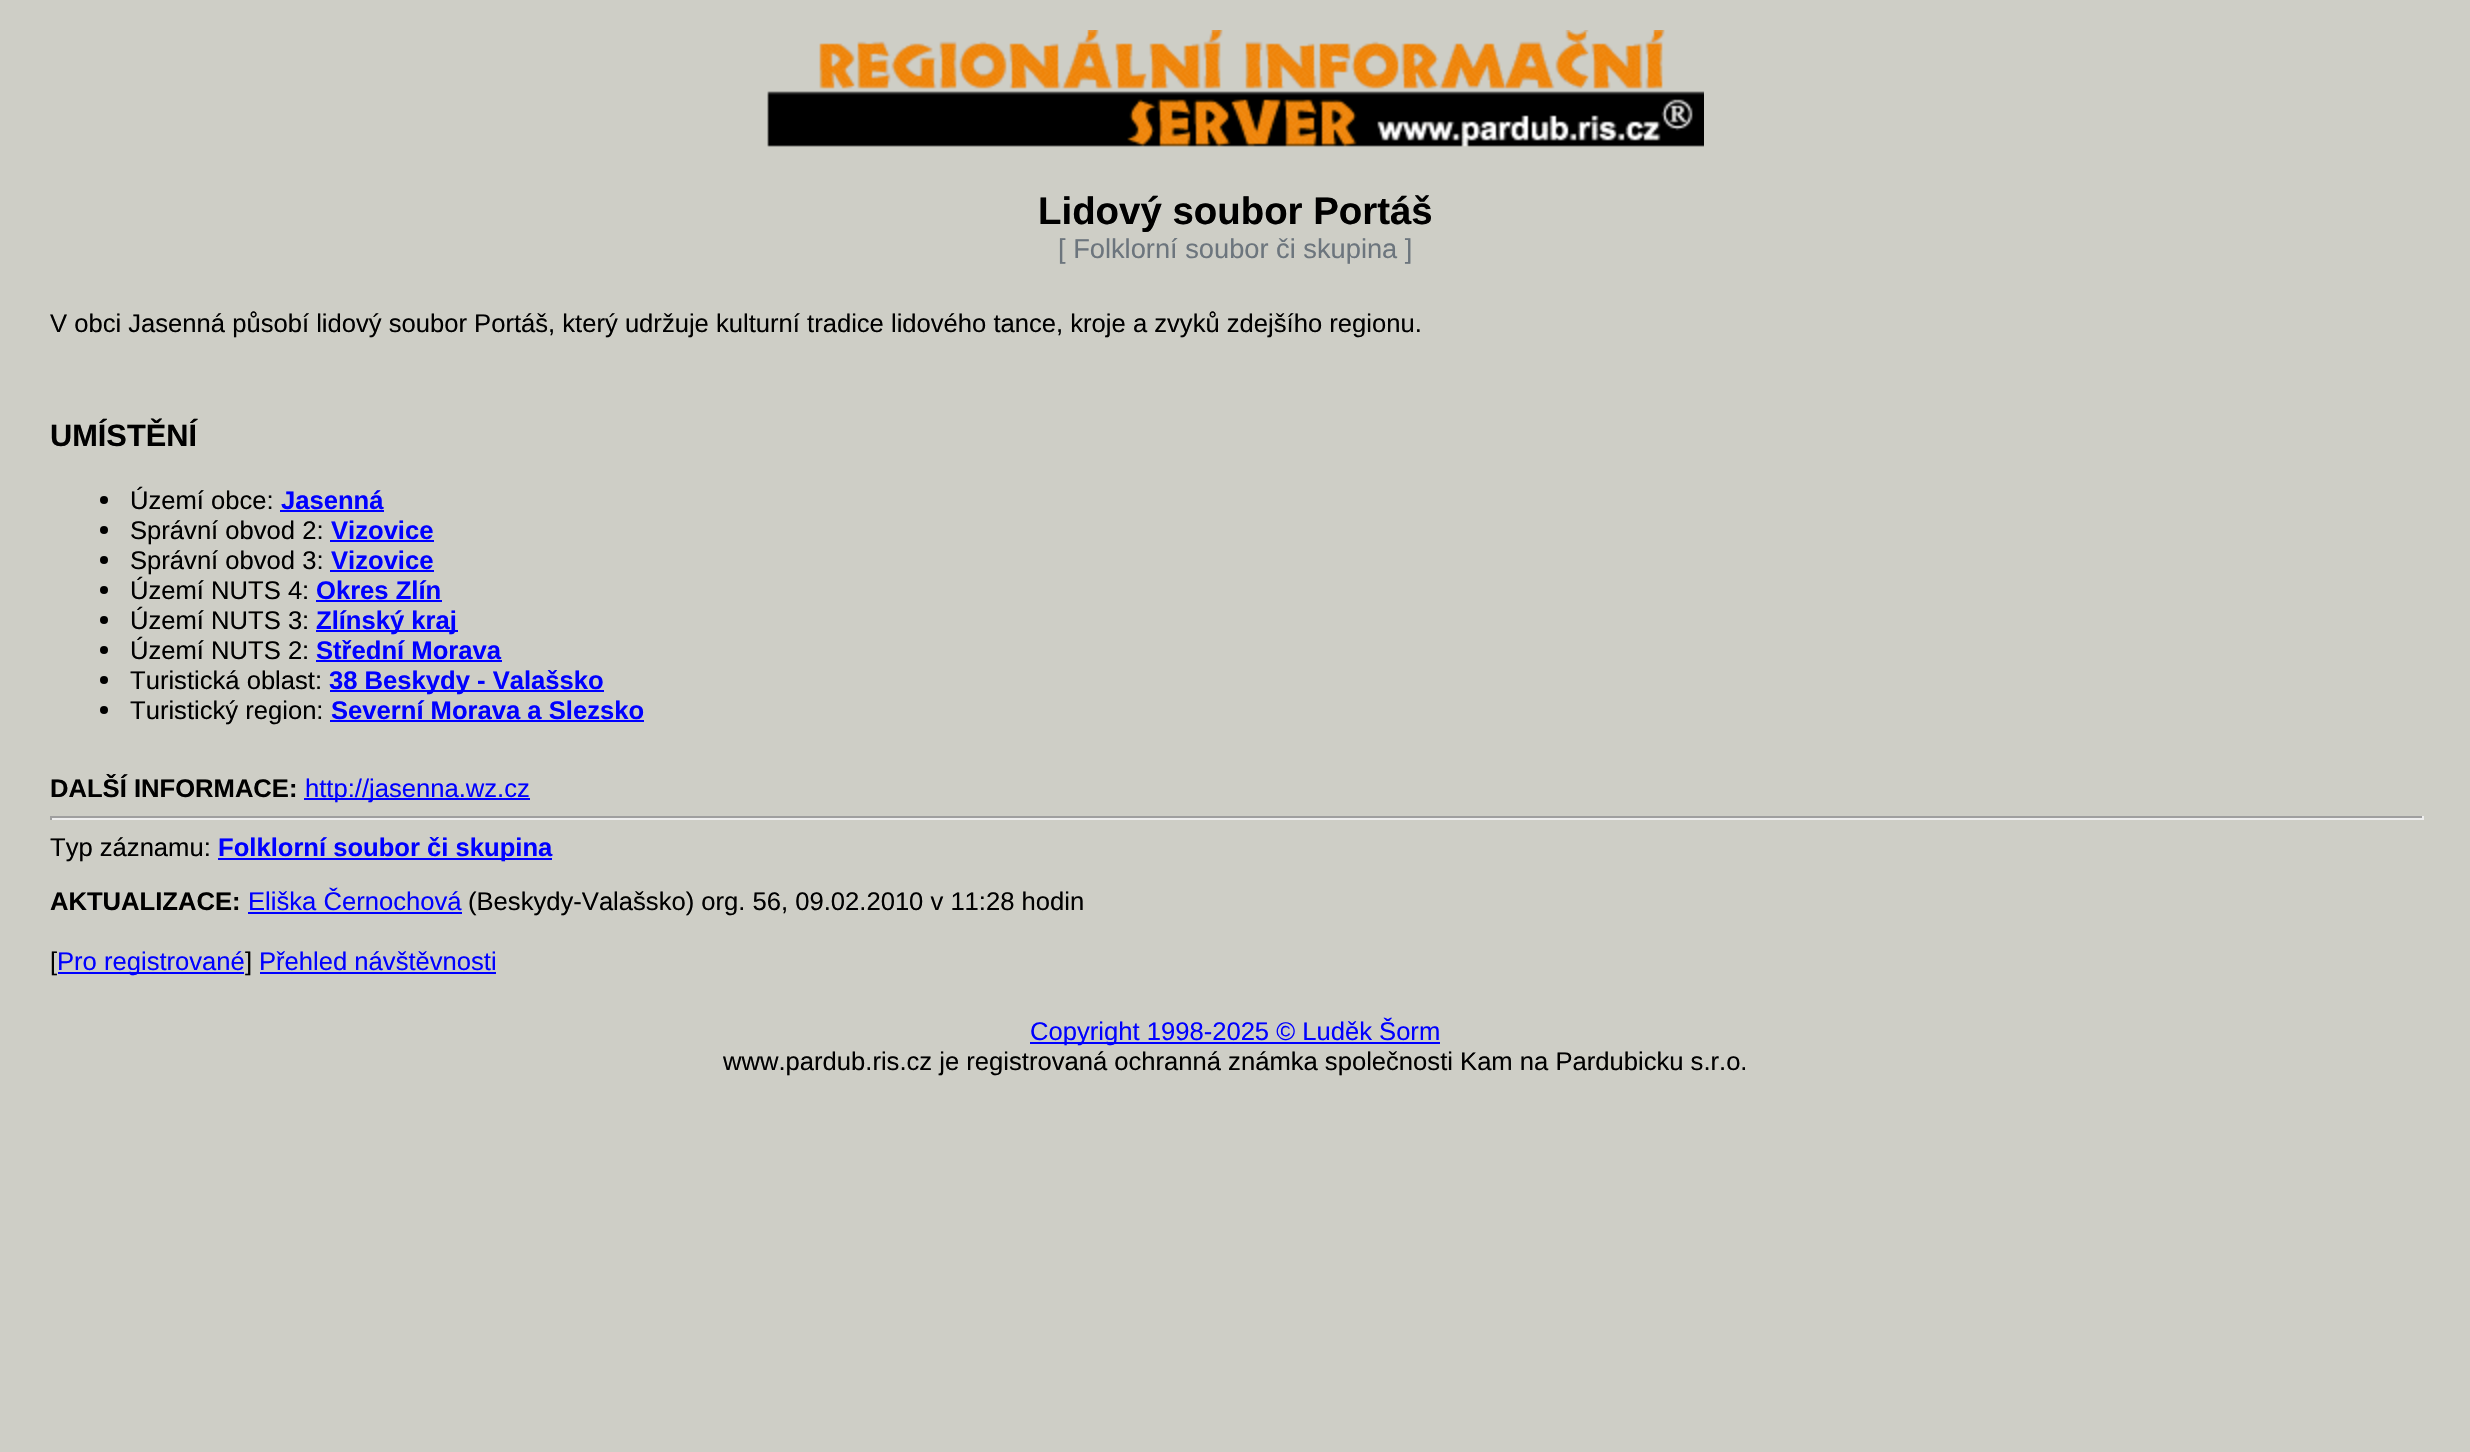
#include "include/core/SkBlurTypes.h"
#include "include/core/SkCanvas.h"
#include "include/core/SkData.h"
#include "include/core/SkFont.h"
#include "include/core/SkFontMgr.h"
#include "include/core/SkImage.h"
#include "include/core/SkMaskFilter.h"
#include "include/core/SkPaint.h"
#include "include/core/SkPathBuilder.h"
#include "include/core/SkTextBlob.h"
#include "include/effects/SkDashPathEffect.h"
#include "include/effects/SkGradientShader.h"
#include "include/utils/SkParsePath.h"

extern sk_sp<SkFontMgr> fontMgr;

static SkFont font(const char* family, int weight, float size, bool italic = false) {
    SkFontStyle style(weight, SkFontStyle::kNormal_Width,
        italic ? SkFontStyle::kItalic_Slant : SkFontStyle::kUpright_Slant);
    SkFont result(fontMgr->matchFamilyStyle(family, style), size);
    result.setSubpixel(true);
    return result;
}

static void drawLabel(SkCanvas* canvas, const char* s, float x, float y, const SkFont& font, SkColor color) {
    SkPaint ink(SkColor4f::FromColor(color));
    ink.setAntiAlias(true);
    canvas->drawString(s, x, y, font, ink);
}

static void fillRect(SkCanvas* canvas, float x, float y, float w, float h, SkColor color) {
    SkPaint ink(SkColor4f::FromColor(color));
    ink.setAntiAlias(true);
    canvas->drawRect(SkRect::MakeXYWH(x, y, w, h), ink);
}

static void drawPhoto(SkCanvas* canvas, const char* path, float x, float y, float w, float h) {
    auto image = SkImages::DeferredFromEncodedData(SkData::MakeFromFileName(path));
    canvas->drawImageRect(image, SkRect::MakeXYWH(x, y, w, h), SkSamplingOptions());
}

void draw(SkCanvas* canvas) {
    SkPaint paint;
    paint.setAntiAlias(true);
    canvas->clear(0xFFCECEC6);
    drawPhoto(canvas, "assets/img1.png", 767, 30, 937, 117);
    SkFont font1 = font("Liberation Sans", 700, 38.4f);
    drawLabel(canvas, "Lidový soubor Portáš", 1038, 224, font1, 0xFF000000);
    SkFont font2 = font("Liberation Sans", 400, 27.25f);
    drawLabel(canvas, "[ Folklorní soubor či skupina ]", 1058, 258, font2, 0xFF6C757D);
    SkFont font3 = font("Liberation Sans", 400, 25.6f);
    drawLabel(canvas, "V obci Jasenná působí lidový soubor Portáš, který udržuje kulturní tradice lidového tance, kroje a zvyků zdejšího regionu.", 50, 332, font3, 0xFF000000);
    SkFont font4 = font("Liberation Sans", 700, 30.75f);
    drawLabel(canvas, "UMÍSTĚNÍ", 50, 446, font4, 0xFF000000);
    paint.setColor(0xFF000000);
    canvas->drawCircle(104, 500, 4, paint);
    drawLabel(canvas, "Území obce:", 130, 509, font3, 0xFF000000);
    SkFont font5 = font("Liberation Sans", 700, 25.6f);
    drawLabel(canvas, "Jasenná", 281, 509, font5, 0xFF0000FF);
    fillRect(canvas, 280, 510, 104, 2, 0xFF0000FF);
    canvas->drawCircle(104, 530, 4, paint);
    drawLabel(canvas, "Správní obvod 2:", 130, 539, font3, 0xFF000000);
    drawLabel(canvas, "Vizovice", 331, 539, font5, 0xFF0000FF);
    fillRect(canvas, 330, 540, 104, 2, 0xFF0000FF);
    canvas->drawCircle(104, 560, 4, paint);
    drawLabel(canvas, "Správní obvod 3:", 130, 569, font3, 0xFF000000);
    drawLabel(canvas, "Vizovice", 331, 569, font5, 0xFF0000FF);
    fillRect(canvas, 330, 570, 104, 2, 0xFF0000FF);
    canvas->drawCircle(104, 590, 4, paint);
    drawLabel(canvas, "Území NUTS 4:", 130, 599, font3, 0xFF000000);
    drawLabel(canvas, "Okres Zlín", 316, 599, font5, 0xFF0000FF);
    fillRect(canvas, 316, 600, 126, 2, 0xFF0000FF);
    canvas->drawCircle(104, 620, 4, paint);
    drawLabel(canvas, "Území NUTS 3:", 130, 629, font3, 0xFF000000);
    fillRect(canvas, 316, 630, 142, 2, 0xFF0000FF);
    drawLabel(canvas, "Zlínský kraj", 316, 629, font5, 0xFF0000FF);
    canvas->drawCircle(104, 650, 4, paint);
    drawLabel(canvas, "Území NUTS 2:", 130, 659, font3, 0xFF000000);
    drawLabel(canvas, "Střední Morava", 316, 659, font5, 0xFF0000FF);
    fillRect(canvas, 316, 660, 186, 2, 0xFF0000FF);
    canvas->drawCircle(104, 680, 4, paint);
    drawLabel(canvas, "Turistická oblast:", 130, 689, font3, 0xFF000000);
    fillRect(canvas, 330, 690, 274, 2, 0xFF0000FF);
    drawLabel(canvas, "38 Beskydy - Valašsko", 329, 689, font5, 0xFF0000FF);
    canvas->drawCircle(104, 710, 4, paint);
    drawLabel(canvas, "Turistický region:", 130, 719, font3, 0xFF000000);
    drawLabel(canvas, "Severní Morava a Slezsko", 331, 719, font5, 0xFF0000FF);
    fillRect(canvas, 330, 720, 314, 2, 0xFF0000FF);
    drawLabel(canvas, "DALŠÍ INFORMACE:", 50, 797, font5, 0xFF000000);
    fillRect(canvas, 304, 798, 226, 2, 0xFF0000FF);
    drawLabel(canvas, "http://jasenna.wz.cz", 305, 797, font3, 0xFF0000FF);
    fillRect(canvas, 50, 816, 2374, 2, 0xFF9F9F9F);
    fillRect(canvas, 2422, 816, 2, 4, 0xFFEEEEEE);
    fillRect(canvas, 50, 818, 2374, 2, 0xFFEEEEEE);
    fillRect(canvas, 50, 816, 2, 4, 0xFF9F9F9F);
    drawLabel(canvas, "Typ záznamu:", 50, 856, font3, 0xFF000000);
    fillRect(canvas, 218, 858, 334, 2, 0xFF0000FF);
    drawLabel(canvas, "Folklorní soubor či skupina", 218, 856, font5, 0xFF0000FF);
    drawLabel(canvas, "AKTUALIZACE:", 50, 910, font5, 0xFF000000);
    drawLabel(canvas, "Eliška Černochová", 248, 910, font3, 0xFF0000FF);
    fillRect(canvas, 248, 912, 214, 2, 0xFF0000FF);
    drawLabel(canvas, "(Beskydy-Valašsko) org. 56, 09.02.2010 v 11:28 hodin", 468, 910, font3, 0xFF000000);
    drawLabel(canvas, "[", 50, 970, font3, 0xFF000000);
    fillRect(canvas, 58, 972, 186, 2, 0xFF0000FF);
    drawLabel(canvas, "Pro registrované", 57, 970, font3, 0xFF0000FF);
    drawLabel(canvas, "]", 245, 970, font3, 0xFF000000);
    drawLabel(canvas, "Přehled návštěvnosti", 259, 970, font3, 0xFF0000FF);
    fillRect(canvas, 260, 972, 236, 2, 0xFF0000FF);
    fillRect(canvas, 1030, 1042, 410, 2, 0xFF0000FF);
    drawLabel(canvas, "Copyright 1998-2025 © Luděk Šorm", 1030, 1040, font3, 0xFF0000FF);
    drawLabel(canvas, "www.pardub.ris.cz je registrovaná ochranná známka společnosti Kam na Pardubicku s.r.o.", 723, 1070, font3, 0xFF000000);
}
